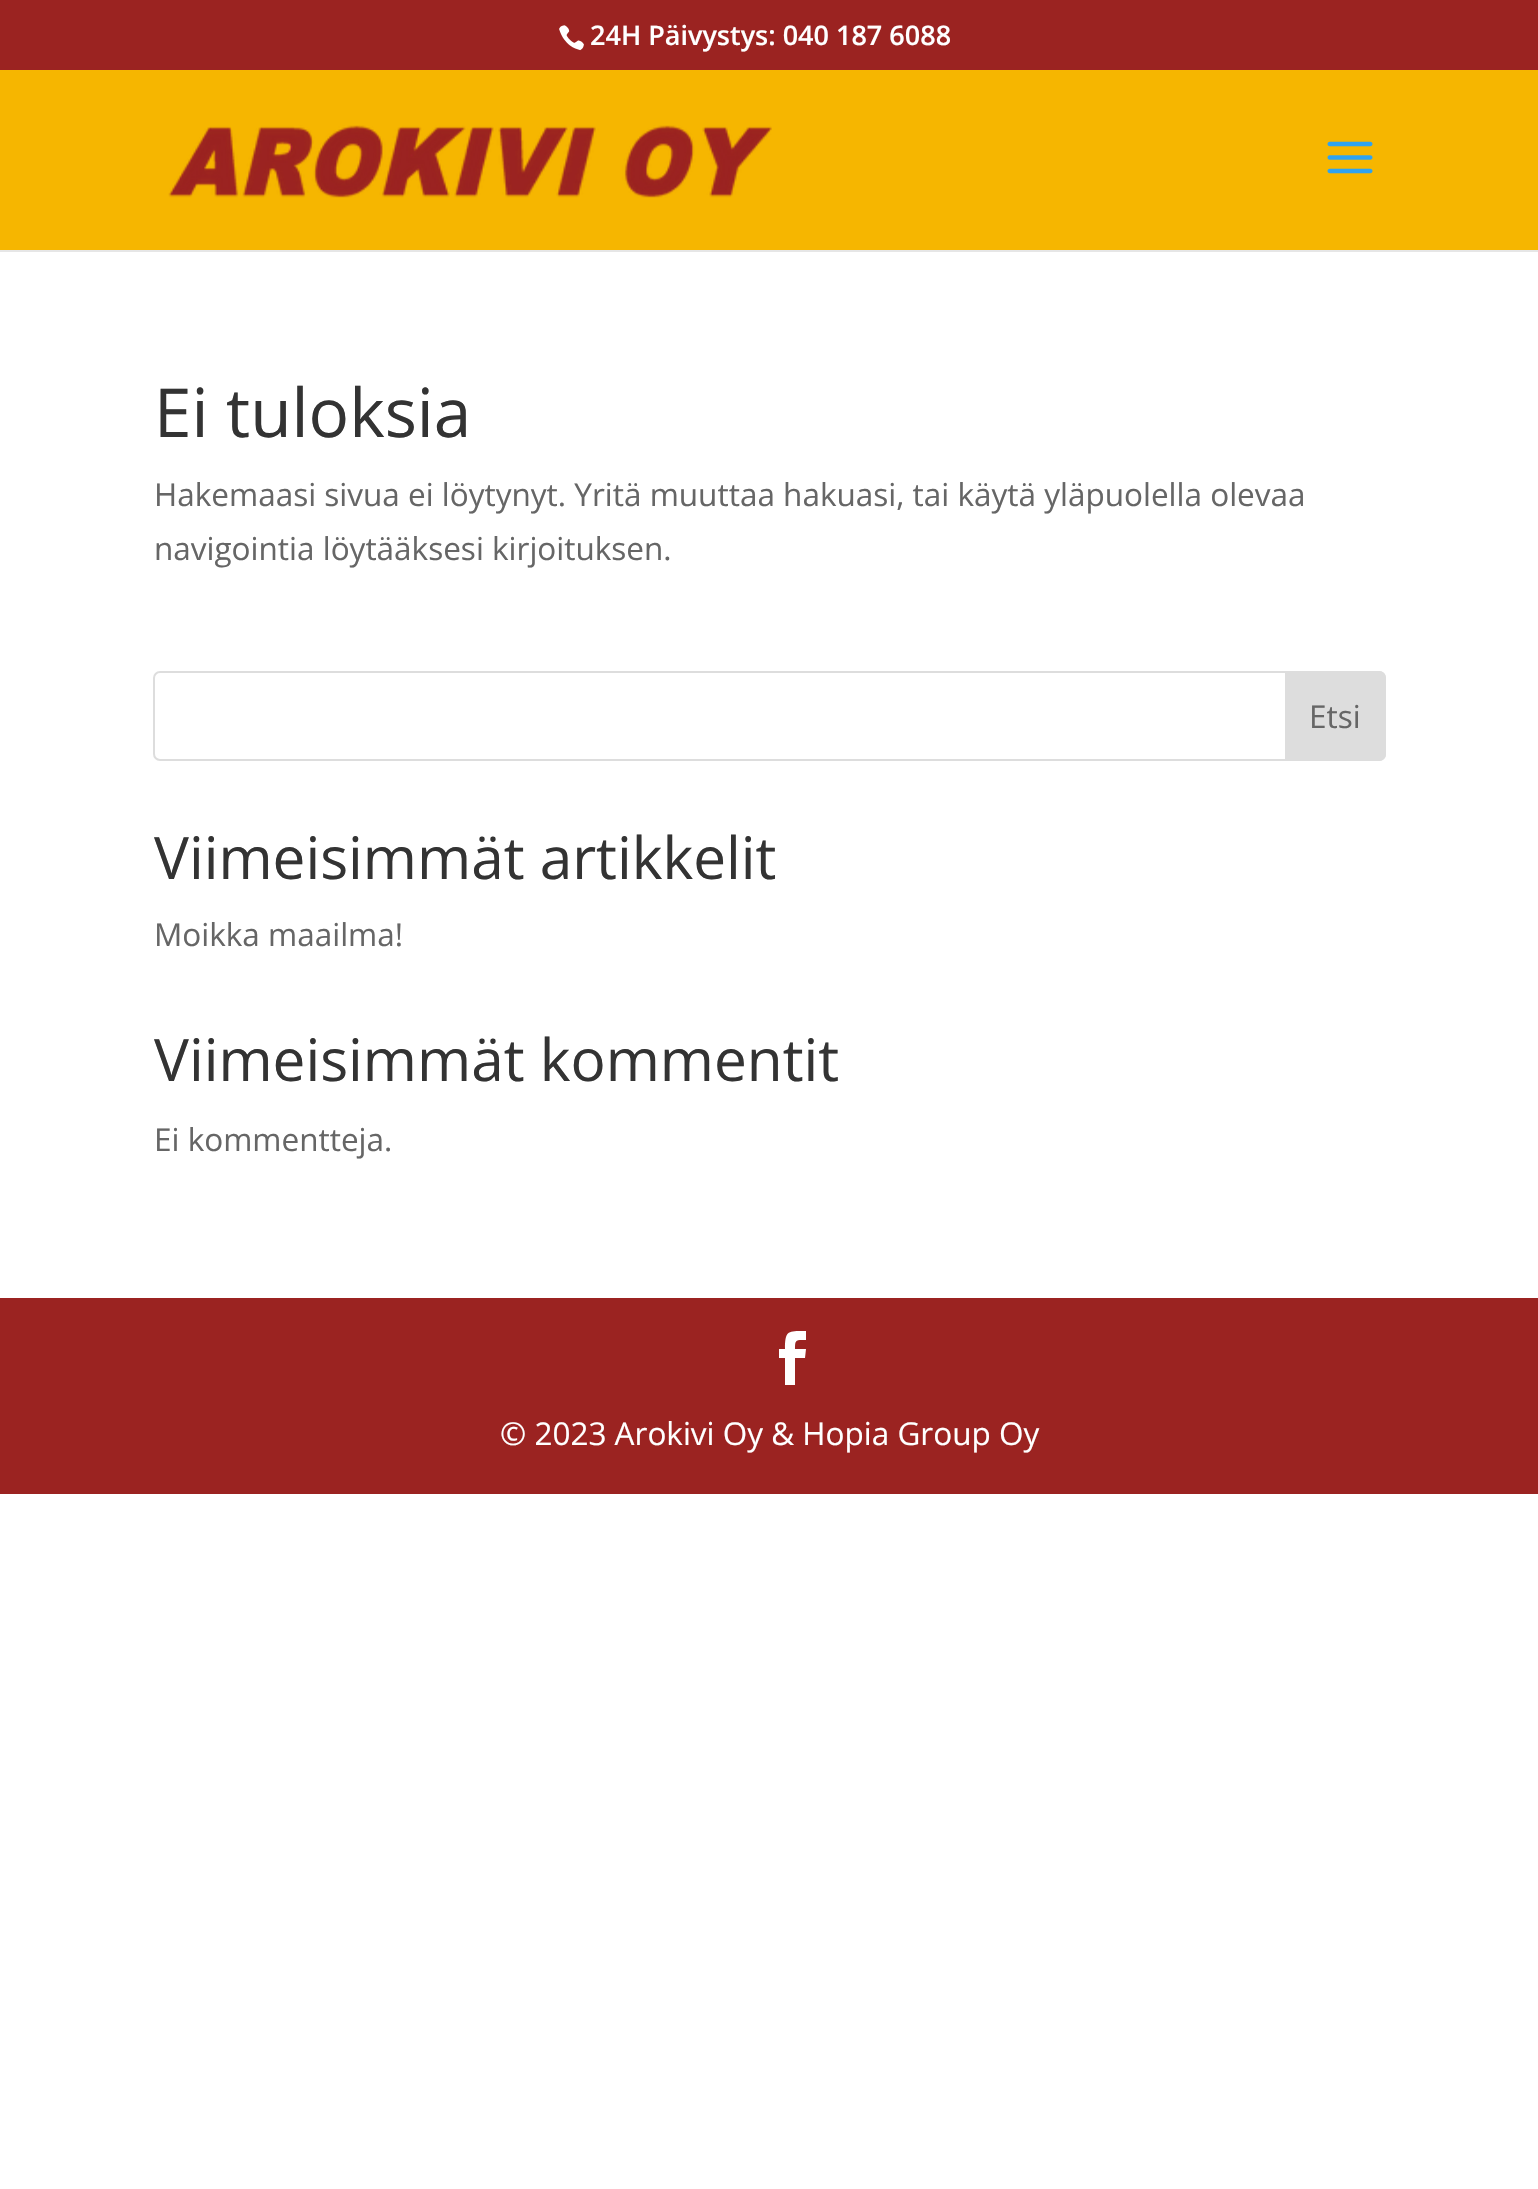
#include "include/core/SkBlurTypes.h"
#include "include/core/SkCanvas.h"
#include "include/core/SkData.h"
#include "include/core/SkFont.h"
#include "include/core/SkFontMgr.h"
#include "include/core/SkImage.h"
#include "include/core/SkMaskFilter.h"
#include "include/core/SkPaint.h"
#include "include/core/SkPathBuilder.h"
#include "include/core/SkTextBlob.h"
#include "include/effects/SkDashPathEffect.h"
#include "include/effects/SkGradientShader.h"
#include "include/utils/SkParsePath.h"

extern sk_sp<SkFontMgr> fontMgr;

static SkFont font(const char* family, int weight, float size, bool italic = false) {
    SkFontStyle style(weight, SkFontStyle::kNormal_Width,
        italic ? SkFontStyle::kItalic_Slant : SkFontStyle::kUpright_Slant);
    SkFont result(fontMgr->matchFamilyStyle(family, style), size);
    result.setSubpixel(true);
    return result;
}

static void drawLabel(SkCanvas* canvas, const char* s, float x, float y, const SkFont& font, SkColor color) {
    SkPaint ink(SkColor4f::FromColor(color));
    ink.setAntiAlias(true);
    canvas->drawString(s, x, y, font, ink);
}

static void fillRect(SkCanvas* canvas, float x, float y, float w, float h, SkColor color) {
    SkPaint ink(SkColor4f::FromColor(color));
    ink.setAntiAlias(true);
    canvas->drawRect(SkRect::MakeXYWH(x, y, w, h), ink);
}

static void drawPhoto(SkCanvas* canvas, const char* path, float x, float y, float w, float h) {
    auto image = SkImages::DeferredFromEncodedData(SkData::MakeFromFileName(path));
    canvas->drawImageRect(image, SkRect::MakeXYWH(x, y, w, h), SkSamplingOptions());
}

static SkPath parsePath(const char* data, bool evenOdd = false) {
    SkPath result = *SkParsePath::FromSVGString(data);
    if (evenOdd) result.setFillType(SkPathFillType::kEvenOdd);
    return result;
}

void draw(SkCanvas* canvas) {
    SkPaint paint;
    paint.setAntiAlias(true);
    canvas->clear(0xFFFFFFFF);
    fillRect(canvas, 0, 0, 1538, 70, 0xFF9B2321);
    drawPhoto(canvas, "assets/img1.png", 559, 25, 25, 26);
    SkFont font1 = font("Open Sans", 600, 27);
    drawLabel(canvas, "24H Päivystys: 040 187 6088", 590, 45, font1, 0xFFFFFFFF);
    fillRect(canvas, 0, 250, 1538, 2, 0xFFE6E6E6);
    fillRect(canvas, 0, 70, 1538, 180, 0xFFF6B600);
    drawPhoto(canvas, "assets/img2.png", 168, 125, 604, 73);
    drawPhoto(canvas, "assets/img3.png", 1327, 141, 46, 33);
    SkFont font2 = font("Open Sans", 400, 67.5f);
    drawLabel(canvas, "Ei tuloksia", 154, 437, font2, 0xFF333333);
    SkFont font3 = font("Open Sans", 400, 31.5f);
    drawLabel(canvas, "Hakemaasi sivua ei löytynyt. Yritä muuttaa hakuasi, tai käytä yläpuolella olevaa", 154, 506, font3, 0xFF666666);
    drawLabel(canvas, "navigointia löytääksesi kirjoituksen.", 154, 560, font3, 0xFF666666);
    paint.setStroke(true);
    paint.setStrokeWidth(2);
    paint.setColor(0xFFDDDDDD);
    canvas->drawRoundRect(SkRect::MakeXYWH(154, 672, 1231, 88), 6, 6, paint);
    paint.setStroke(false);
    canvas->drawPath(parsePath("M1286 672H1379C1382.5 672 1385 674.5 1385 678V754C1385 757.5 1382.5 760 1379 760H1286Z"), paint);
    paint.setStroke(true);
    canvas->drawPath(parsePath("M1286 672H1379C1382.5 672 1385 674.5 1385 678V754C1385 757.5 1382.5 760 1379 760H1286Z"), paint);
    drawLabel(canvas, "Etsi", 1309, 728, font3, 0xFF666666);
    SkFont font4 = font("Open Sans", 400, 58.5f);
    drawLabel(canvas, "Viimeisimmät artikkelit", 154, 879, font4, 0xFF333333);
    drawLabel(canvas, "Moikka maailma!", 154, 946, font3, 0xFF666666);
    drawLabel(canvas, "Viimeisimmät kommentit", 154, 1081, font4, 0xFF333333);
    drawLabel(canvas, "Ei kommentteja.", 154, 1151, font3, 0xFF666666);
    fillRect(canvas, 0, 1298, 1538, 196, 0xFF9B2321);
    paint.setStroke(false);
    paint.setColor(0xFFFFFFFF);
    canvas->drawPath(parsePath("M785 1385H795V1358H805L806 1349H795C795 1339 796 1340 806 1340V1331C788 1331 785 1330 785 1349H779V1358H785Z"), paint);
    drawLabel(canvas, "© 2023 Arokivi Oy & Hopia Group Oy", 500, 1445, font3, 0xFFFFFFFF);
}
